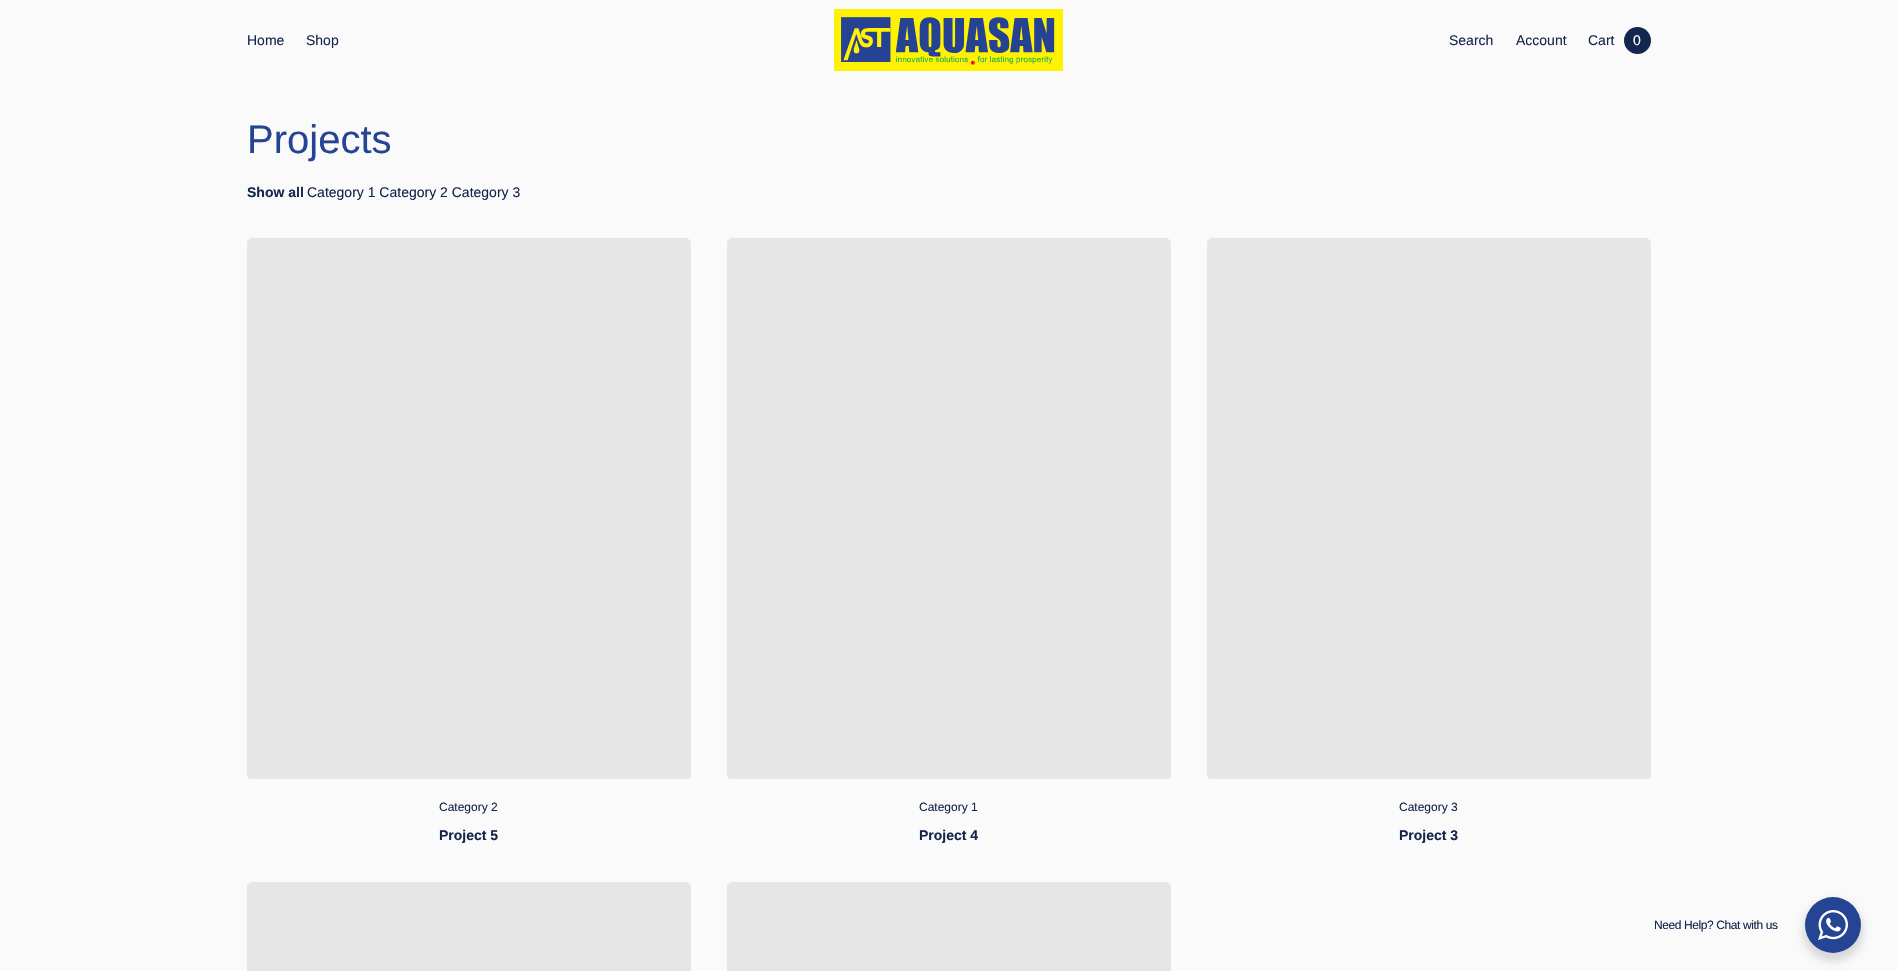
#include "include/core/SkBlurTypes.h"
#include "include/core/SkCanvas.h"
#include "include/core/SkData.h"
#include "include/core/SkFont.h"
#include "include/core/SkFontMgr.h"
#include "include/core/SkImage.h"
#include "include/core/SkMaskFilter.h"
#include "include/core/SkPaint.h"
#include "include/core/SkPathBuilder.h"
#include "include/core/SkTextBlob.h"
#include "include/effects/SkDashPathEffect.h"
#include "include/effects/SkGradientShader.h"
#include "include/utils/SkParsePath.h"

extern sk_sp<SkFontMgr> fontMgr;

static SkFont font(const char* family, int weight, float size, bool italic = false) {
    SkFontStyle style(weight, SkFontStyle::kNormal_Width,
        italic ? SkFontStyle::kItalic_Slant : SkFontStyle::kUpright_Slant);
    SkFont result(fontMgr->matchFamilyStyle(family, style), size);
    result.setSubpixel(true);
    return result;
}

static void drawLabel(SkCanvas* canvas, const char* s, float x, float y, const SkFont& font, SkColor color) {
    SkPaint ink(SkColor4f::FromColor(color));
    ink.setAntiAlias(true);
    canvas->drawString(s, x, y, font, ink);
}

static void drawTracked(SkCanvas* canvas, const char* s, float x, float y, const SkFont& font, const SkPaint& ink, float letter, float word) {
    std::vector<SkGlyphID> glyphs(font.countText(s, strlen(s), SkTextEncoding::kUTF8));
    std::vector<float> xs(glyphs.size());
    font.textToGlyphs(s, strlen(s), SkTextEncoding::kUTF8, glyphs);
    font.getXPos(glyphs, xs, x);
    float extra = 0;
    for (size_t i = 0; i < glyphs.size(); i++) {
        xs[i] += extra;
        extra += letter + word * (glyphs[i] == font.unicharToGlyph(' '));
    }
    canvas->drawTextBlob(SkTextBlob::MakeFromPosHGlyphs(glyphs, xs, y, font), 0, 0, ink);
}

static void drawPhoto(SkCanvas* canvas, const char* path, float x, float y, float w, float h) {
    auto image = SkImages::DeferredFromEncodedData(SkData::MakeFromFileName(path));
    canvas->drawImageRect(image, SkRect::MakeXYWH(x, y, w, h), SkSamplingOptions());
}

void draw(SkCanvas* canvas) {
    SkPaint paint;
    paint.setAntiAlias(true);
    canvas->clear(0xFFFAFAFA);
    SkFont font1 = font("Liberation Sans", 400, 14);
    drawLabel(canvas, "Home", 247, 45, font1, 0xFF14254E);
    drawLabel(canvas, "Shop", 306, 45, font1, 0xFF14254E);
    drawPhoto(canvas, "assets/img1.png", 834, 9, 229, 62);
    drawLabel(canvas, "Search", 1449, 45, font1, 0xFF14254E);
    drawLabel(canvas, "Account", 1516, 45, font1, 0xFF14254E);
    drawLabel(canvas, "Cart", 1588, 45, font1, 0xFF14254E);
    paint.setColor(0xFF14254E);
    canvas->drawCircle(1637.5f, 40.5f, 13.5f, paint);
    drawLabel(canvas, "0", 1633, 45, font1, 0xFFFFFFFF);
    SkFont font2 = font("Liberation Sans", 400, 40);
    drawLabel(canvas, "Projects", 247, 153, font2, 0xFF254594);
    SkFont font3 = font("Liberation Sans", 700, 14);
    drawLabel(canvas, "Show all", 247, 197, font3, 0xFF14254E);
    drawLabel(canvas, "Category 1 Category 2 Category 3", 307, 197, font1, 0xFF14254E);
    drawPhoto(canvas, "assets/img2.png", 247, 238, 444, 541);
    SkFont font4 = font("Liberation Sans", 400, 12);
    drawLabel(canvas, "Category 2", 439, 811, font4, 0xFF14254E);
    drawLabel(canvas, "Project 5", 439, 840, font3, 0xFF14254E);
    drawPhoto(canvas, "assets/img2.png", 727, 238, 444, 541);
    drawLabel(canvas, "Category 1", 919, 811, font4, 0xFF14254E);
    drawLabel(canvas, "Project 4", 919, 840, font3, 0xFF14254E);
    drawPhoto(canvas, "assets/img2.png", 1207, 238, 444, 541);
    drawLabel(canvas, "Category 3", 1399, 811, font4, 0xFF14254E);
    drawLabel(canvas, "Project 3", 1399, 840, font3, 0xFF14254E);
    drawPhoto(canvas, "assets/img3.png", 247, 882, 444, 89);
    drawPhoto(canvas, "assets/img3.png", 727, 882, 444, 89);
    drawTracked(canvas, "Need Help? Chat with us", 1654, 929, font4, paint, -0.4f, 0);
    paint.setColor(0x24000000);
    paint.setMaskFilter(SkMaskFilter::MakeBlur(kNormal_SkBlurStyle, 4));
    canvas->drawRoundRect(SkRect::MakeXYWH(1803, 901, 60, 60), 30, 30, paint);
    paint.setMaskFilter(nullptr);
    paint.setColor(0xFF254594);
    canvas->drawCircle(1833, 925, 28, paint);
    drawPhoto(canvas, "assets/img4.png", 1818, 910, 30, 30);
}
